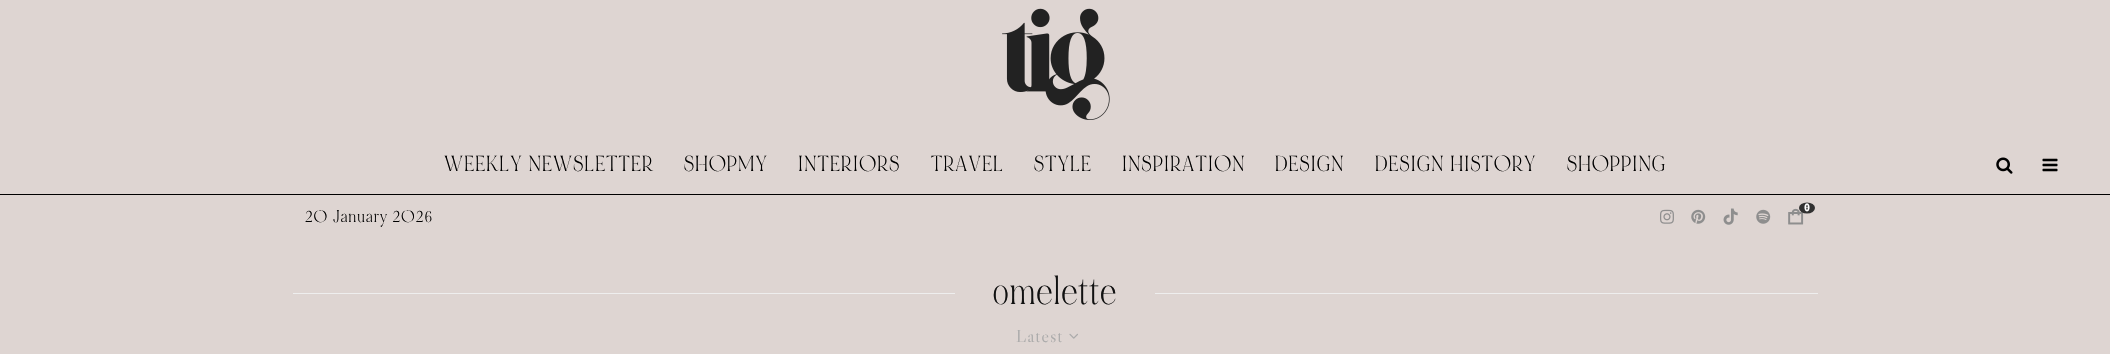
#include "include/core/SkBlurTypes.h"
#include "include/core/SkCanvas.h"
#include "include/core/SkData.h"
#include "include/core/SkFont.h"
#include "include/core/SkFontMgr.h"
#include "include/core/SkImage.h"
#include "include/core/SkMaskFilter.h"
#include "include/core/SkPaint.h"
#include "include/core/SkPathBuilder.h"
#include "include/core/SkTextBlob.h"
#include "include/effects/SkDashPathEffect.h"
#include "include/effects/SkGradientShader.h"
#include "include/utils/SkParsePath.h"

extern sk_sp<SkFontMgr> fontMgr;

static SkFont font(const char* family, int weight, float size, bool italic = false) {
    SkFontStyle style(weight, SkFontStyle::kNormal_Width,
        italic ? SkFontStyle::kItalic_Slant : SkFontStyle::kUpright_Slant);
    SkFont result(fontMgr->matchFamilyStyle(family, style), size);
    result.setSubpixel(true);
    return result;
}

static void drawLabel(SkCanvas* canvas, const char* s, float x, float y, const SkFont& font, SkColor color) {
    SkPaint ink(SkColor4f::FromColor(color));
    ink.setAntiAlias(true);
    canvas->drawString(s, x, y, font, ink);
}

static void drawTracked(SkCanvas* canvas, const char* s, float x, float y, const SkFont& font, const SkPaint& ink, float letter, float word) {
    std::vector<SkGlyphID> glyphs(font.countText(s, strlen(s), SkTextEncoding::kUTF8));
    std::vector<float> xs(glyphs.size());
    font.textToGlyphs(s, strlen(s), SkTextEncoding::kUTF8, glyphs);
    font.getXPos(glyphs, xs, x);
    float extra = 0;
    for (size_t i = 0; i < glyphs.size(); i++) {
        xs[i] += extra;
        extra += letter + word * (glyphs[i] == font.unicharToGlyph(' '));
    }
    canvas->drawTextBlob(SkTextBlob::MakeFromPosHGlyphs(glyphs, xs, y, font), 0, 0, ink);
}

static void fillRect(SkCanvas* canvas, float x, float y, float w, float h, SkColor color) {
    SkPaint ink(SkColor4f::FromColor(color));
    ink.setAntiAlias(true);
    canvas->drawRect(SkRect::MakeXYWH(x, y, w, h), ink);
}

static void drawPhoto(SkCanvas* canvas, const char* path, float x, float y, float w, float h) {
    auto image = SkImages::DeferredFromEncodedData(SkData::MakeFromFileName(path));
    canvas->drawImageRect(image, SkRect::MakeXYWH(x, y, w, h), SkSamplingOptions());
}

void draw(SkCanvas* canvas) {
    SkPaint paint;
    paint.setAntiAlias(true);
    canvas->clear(0xFFDED5D2);
    drawPhoto(canvas, "assets/img1.png", 1002, 8, 108, 112);
    SkFont font1 = font("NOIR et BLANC", 400, 17.5f);
    paint.setColor(0xFF000000);
    drawTracked(canvas, "WEEKLY NEWSLETTER", 444, 171, font1, paint, 1.25f, 0);
    drawTracked(canvas, "SHOPMY", 684, 171, font1, paint, 1.25f, 0);
    drawTracked(canvas, "INTERIORS", 798, 171, font1, paint, 1.25f, 0);
    drawTracked(canvas, "TRAVEL", 931, 171, font1, paint, 1.25f, 0);
    drawTracked(canvas, "STYLE", 1034, 171, font1, paint, 1.25f, 0);
    drawTracked(canvas, "INSPIRATION", 1122, 171, font1, paint, 1.25f, 0);
    drawTracked(canvas, "DESIGN", 1275, 171, font1, paint, 1.25f, 0);
    drawTracked(canvas, "DESIGN HISTORY", 1375, 171, font1, paint, 1.25f, 0);
    drawTracked(canvas, "SHOPPING", 1567, 171, font1, paint, 1.25f, 0);
    drawPhoto(canvas, "assets/img2.png", 1996, 157, 17, 17);
    drawPhoto(canvas, "assets/img3.png", 2042, 158, 16, 14);
    fillRect(canvas, 0, 194, 2110, 1, 0xFF000000);
    drawPhoto(canvas, "assets/img4.png", 1660, 209, 14, 15);
    drawPhoto(canvas, "assets/img5.png", 1691, 209, 15, 15);
    drawPhoto(canvas, "assets/img6.png", 1723, 208, 15, 17);
    drawPhoto(canvas, "assets/img7.png", 1756, 209, 15, 15);
    drawPhoto(canvas, "assets/img8.png", 1788, 208, 16, 17);
    paint.setColor(0xFF313131);
    canvas->drawOval(SkRect::MakeXYWH(1799, 202.5f, 16, 11), paint);
    SkFont font2 = font("DejaVu Sans Mono", 700, 10);
    drawLabel(canvas, "0", 1804, 211, font2, 0xFFFFFFFF);
    SkFont font3 = font("NOIR et BLANC", 400, 13.75f);
    paint.setColor(0xFF000000);
    drawTracked(canvas, "20 January 2026", 305, 222, font3, paint, 1.25f, 0);
    fillRect(canvas, 293, 293, 662, 1, 0xFFEEEEEE);
    SkFont font4 = font("NOIR et BLANC", 400, 31);
    paint.setColor(0xFF111111);
    drawTracked(canvas, "omelette", 993, 304, font4, paint, 1.25f, 0);
    fillRect(canvas, 1155, 293, 663, 1, 0xFFEEEEEE);
    SkFont font5 = font("Libre Caslon Display", 400, 17.5f);
    paint.setColor(0xFFAAAAAA);
    drawTracked(canvas, "Latest", 1016, 342, font5, paint, 1.25f, 0);
    drawPhoto(canvas, "assets/img9.png", 1069, 333, 9, 6);
}
